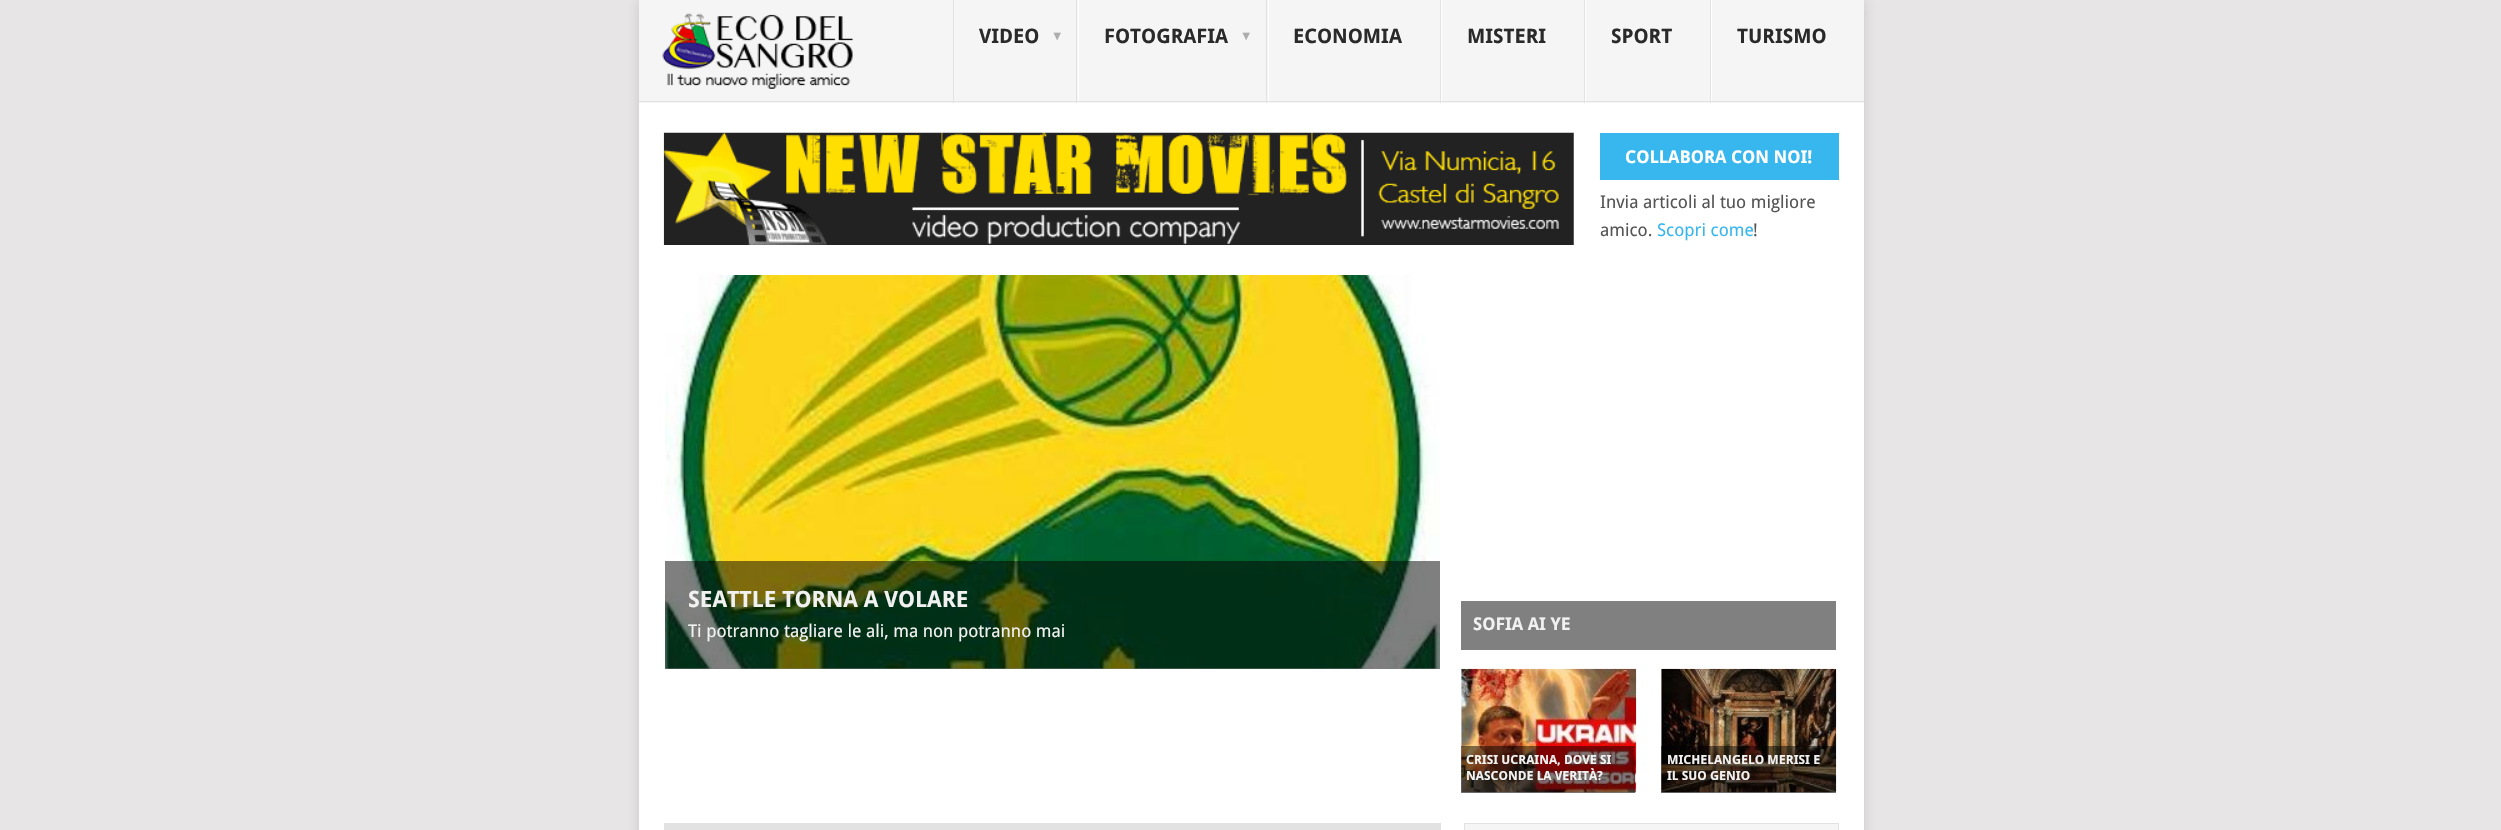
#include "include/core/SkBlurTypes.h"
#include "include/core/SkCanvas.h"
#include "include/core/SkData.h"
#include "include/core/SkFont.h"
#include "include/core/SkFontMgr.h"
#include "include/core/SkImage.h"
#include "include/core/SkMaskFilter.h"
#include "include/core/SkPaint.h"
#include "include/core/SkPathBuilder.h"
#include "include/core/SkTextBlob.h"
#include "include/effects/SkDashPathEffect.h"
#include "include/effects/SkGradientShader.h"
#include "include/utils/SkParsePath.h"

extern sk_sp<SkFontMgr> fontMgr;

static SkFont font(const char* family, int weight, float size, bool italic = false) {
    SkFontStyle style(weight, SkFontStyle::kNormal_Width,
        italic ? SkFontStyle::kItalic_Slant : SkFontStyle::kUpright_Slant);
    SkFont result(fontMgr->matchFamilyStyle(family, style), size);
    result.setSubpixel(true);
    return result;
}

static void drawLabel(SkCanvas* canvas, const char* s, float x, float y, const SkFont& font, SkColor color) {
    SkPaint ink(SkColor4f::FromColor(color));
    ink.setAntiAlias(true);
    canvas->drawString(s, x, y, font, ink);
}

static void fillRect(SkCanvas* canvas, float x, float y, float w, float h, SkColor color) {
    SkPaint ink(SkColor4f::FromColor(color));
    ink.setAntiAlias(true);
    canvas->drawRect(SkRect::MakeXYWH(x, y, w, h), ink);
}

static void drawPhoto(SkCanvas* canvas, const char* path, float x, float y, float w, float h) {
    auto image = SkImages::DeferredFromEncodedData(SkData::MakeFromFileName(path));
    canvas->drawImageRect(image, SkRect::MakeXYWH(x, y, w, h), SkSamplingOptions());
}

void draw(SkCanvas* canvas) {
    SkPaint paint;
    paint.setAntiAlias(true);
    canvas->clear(0xFFE7E5E6);
    paint.setColor(0x2B323232);
    paint.setMaskFilter(SkMaskFilter::MakeBlur(kNormal_SkBlurStyle, 6));
    canvas->drawRect(SkRect::MakeXYWH(639, 0, 1225, 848), paint);
    paint.setMaskFilter(nullptr);
    fillRect(canvas, 639, 103, 1225, 727, 0xFFFFFFFF);
    fillRect(canvas, 639, 0, 1225, 103, 0xFFF5F5F5);
    drawPhoto(canvas, "assets/img1.png", 662, 13, 191, 76);
    fillRect(canvas, 1076, 0, 1, 103, 0xFFE2E2E2);
    fillRect(canvas, 953, 0, 1, 103, 0xFFE2E2E2);
    SkFont font1 = font("Droid Sans", 700, 20);
    drawLabel(canvas, "VIDEO", 979, 43, font1, 0xFF2A2A2A);
    SkFont font2 = font("Liberation Sans", 700, 12.5f);
    drawLabel(canvas, "▼", 1051, 40, font2, 0xFFADADAD);
    fillRect(canvas, 1266, 0, 1, 103, 0xFFE2E2E2);
    fillRect(canvas, 1078, 0, 1, 103, 0xFFFFFFFF);
    drawLabel(canvas, "FOTOGRAFIA", 1104, 43, font1, 0xFF2A2A2A);
    drawLabel(canvas, "▼", 1240, 40, font2, 0xFFADADAD);
    fillRect(canvas, 1440, 0, 1, 103, 0xFFE2E2E2);
    fillRect(canvas, 1268, 0, 1, 103, 0xFFFFFFFF);
    drawLabel(canvas, "ECONOMIA", 1293, 43, font1, 0xFF2A2A2A);
    fillRect(canvas, 1584, 0, 1, 103, 0xFFE2E2E2);
    fillRect(canvas, 1441, 0, 1, 103, 0xFFFFFFFF);
    drawLabel(canvas, "MISTERI", 1467, 43, font1, 0xFF2A2A2A);
    fillRect(canvas, 1710, 0, 1, 103, 0xFFE2E2E2);
    fillRect(canvas, 1585, 0, 1, 103, 0xFFFFFFFF);
    drawLabel(canvas, "SPORT", 1611, 43, font1, 0xFF2A2A2A);
    fillRect(canvas, 1711, 0, 1, 103, 0xFFFFFFFF);
    drawLabel(canvas, "TURISMO", 1737, 43, font1, 0xFF2A2A2A);
    fillRect(canvas, 639, 101, 1225, 1, 0xFFE2E2E2);
    drawPhoto(canvas, "assets/img2.png", 663, 132, 911, 113);
    fillRect(canvas, 1600, 133, 239, 47, 0xFF38B7EE);
    SkFont font3 = font("Droid Sans", 700, 17.5f);
    drawLabel(canvas, "COLLABORA CON NOI!", 1625, 163, font3, 0xFFFFFFFF);
    SkFont font4 = font("Droid Sans", 400, 17.5f);
    drawLabel(canvas, "Invia articoli al tuo migliore", 1600, 208, font4, 0xFF555555);
    drawLabel(canvas, "amico.", 1600, 236, font4, 0xFF555555);
    drawLabel(canvas, "Scopri come", 1657, 236, font4, 0xFF38B7EE);
    drawLabel(canvas, "!", 1753, 236, font4, 0xFF555555);
    drawPhoto(canvas, "assets/img3.png", 665, 275, 775, 394);
    fillRect(canvas, 665, 561, 775, 108, 0x80000000);
    SkFont font5 = font("Droid Sans", 700, 22.5f);
    drawLabel(canvas, "SEATTLE TORNA A VOLARE", 688, 607, font5, 0xFFF1F1F1);
    drawLabel(canvas, "Ti potranno tagliare le ali, ma non potranno mai", 688, 637, font4, 0xFFF1F1F1);
    fillRect(canvas, 1461, 601, 375, 49, 0xFF808080);
    drawLabel(canvas, "SOFIA AI YE", 1473, 630, font3, 0xFFF1F1F1);
    drawPhoto(canvas, "assets/img4.png", 1461, 668, 176, 125);
    fillRect(canvas, 1461, 746, 174, 47, 0x80000000);
    SkFont font6 = font("Droid Sans", 700, 12.5f);
    drawLabel(canvas, "CRISI UCRAINA, DOVE SI", 1466, 764, font6, 0xFFF1F1F1);
    drawLabel(canvas, "NASCONDE LA VERITÀ?", 1466, 780, font6, 0xFFF1F1F1);
    drawPhoto(canvas, "assets/img5.png", 1661, 668, 176, 125);
    fillRect(canvas, 1661, 746, 175, 47, 0x80000000);
    drawLabel(canvas, "MICHELANGELO MERISI E", 1667, 764, font6, 0xFFF1F1F1);
    drawLabel(canvas, "IL SUO GENIO", 1667, 780, font6, 0xFFF1F1F1);
    fillRect(canvas, 664, 823, 777, 7, 0xFFE2E2E2);
    paint.setColor(0xFFF5F5F5);
    canvas->drawRect(SkRect::MakeXYWH(1464.5f, 823.5f, 374, 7), paint);
    paint.setStroke(true);
    paint.setStrokeWidth(1);
    paint.setColor(0xFFE2E2E2);
    canvas->drawRect(SkRect::MakeXYWH(1464.5f, 823.5f, 374, 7), paint);
}
